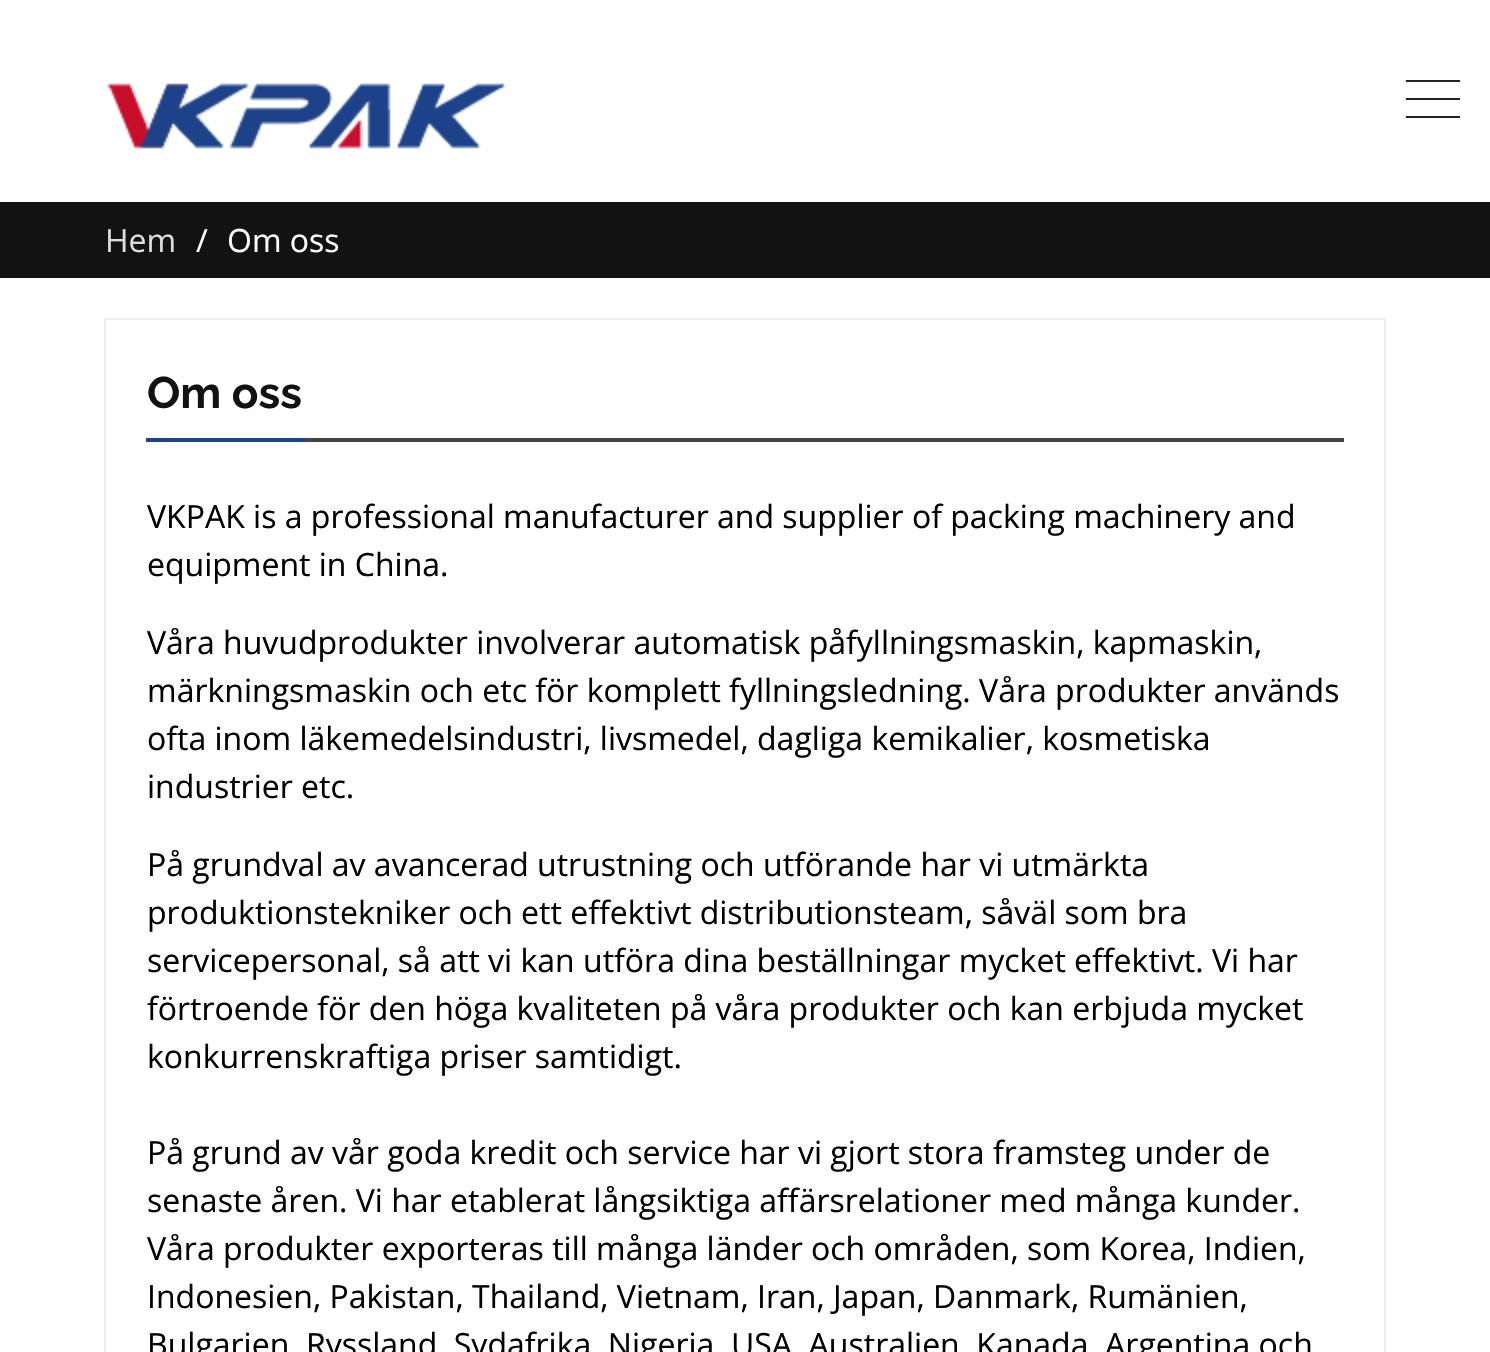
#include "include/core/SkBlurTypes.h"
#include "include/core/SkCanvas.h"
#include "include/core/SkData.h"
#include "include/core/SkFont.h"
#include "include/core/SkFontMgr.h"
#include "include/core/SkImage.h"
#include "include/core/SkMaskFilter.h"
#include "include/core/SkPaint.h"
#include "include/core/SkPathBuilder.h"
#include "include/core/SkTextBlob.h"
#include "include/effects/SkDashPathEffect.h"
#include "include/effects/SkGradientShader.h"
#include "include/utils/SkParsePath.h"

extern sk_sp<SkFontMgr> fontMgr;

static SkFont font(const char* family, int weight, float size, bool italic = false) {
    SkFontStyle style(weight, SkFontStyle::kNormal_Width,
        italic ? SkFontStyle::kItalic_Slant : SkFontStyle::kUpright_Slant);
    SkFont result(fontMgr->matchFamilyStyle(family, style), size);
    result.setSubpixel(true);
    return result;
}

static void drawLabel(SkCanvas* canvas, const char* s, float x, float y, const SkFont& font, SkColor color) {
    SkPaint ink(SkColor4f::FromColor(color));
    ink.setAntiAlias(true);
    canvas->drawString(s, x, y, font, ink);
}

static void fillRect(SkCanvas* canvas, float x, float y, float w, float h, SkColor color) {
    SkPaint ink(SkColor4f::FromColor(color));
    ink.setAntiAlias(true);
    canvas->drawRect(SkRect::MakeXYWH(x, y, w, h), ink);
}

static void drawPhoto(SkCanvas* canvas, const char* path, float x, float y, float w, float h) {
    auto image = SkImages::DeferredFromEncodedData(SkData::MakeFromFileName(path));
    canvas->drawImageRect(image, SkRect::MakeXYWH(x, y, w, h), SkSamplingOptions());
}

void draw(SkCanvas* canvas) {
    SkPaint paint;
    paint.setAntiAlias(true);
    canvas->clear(0xFFFFFFFF);
    drawPhoto(canvas, "assets/img1.png", 107, 83, 398, 66);
    fillRect(canvas, 1406, 80, 54, 2, 0xFF222222);
    fillRect(canvas, 1406, 98, 54, 2, 0xFF222222);
    fillRect(canvas, 1406, 116, 54, 2, 0xFF222222);
    fillRect(canvas, 0, 202, 1490, 76, 0xFF121212);
    SkFont font1 = font("Open Sans", 400, 32);
    drawLabel(canvas, "Hem", 105, 252, font1, 0xFFDDDDDD);
    drawLabel(canvas, "/", 196, 252, font1, 0xFFFFFFFF);
    drawLabel(canvas, "Om oss", 227, 252, font1, 0xFFFFFFFF);
    paint.setStroke(true);
    paint.setStrokeWidth(2);
    paint.setColor(0xFFEEEEEE);
    canvas->drawRect(SkRect::MakeXYWH(105, 319, 1280, 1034), paint);
    SkFont font2 = font("Raleway", 700, 44);
    drawLabel(canvas, "Om oss", 147, 408, font2, 0xFF121212);
    fillRect(canvas, 306, 438, 1038, 4, 0xFF434343);
    fillRect(canvas, 146, 438, 160, 4, 0xFF1D4289);
    drawLabel(canvas, "VKPAK is a professional manufacturer and supplier of packing machinery and", 147, 528, font1, 0xFF000000);
    drawLabel(canvas, "equipment in China.", 147, 576, font1, 0xFF000000);
    drawLabel(canvas, "Våra huvudprodukter involverar automatisk påfyllningsmaskin, kapmaskin,", 147, 654, font1, 0xFF000000);
    drawLabel(canvas, "märkningsmaskin och etc för komplett fyllningsledning. Våra produkter används", 147, 702, font1, 0xFF000000);
    drawLabel(canvas, "ofta inom läkemedelsindustri, livsmedel, dagliga kemikalier, kosmetiska", 147, 750, font1, 0xFF000000);
    drawLabel(canvas, "industrier etc.", 147, 798, font1, 0xFF000000);
    drawLabel(canvas, "På grundval av avancerad utrustning och utförande har vi utmärkta", 147, 876, font1, 0xFF000000);
    drawLabel(canvas, "produktionstekniker och ett effektivt distributionsteam, såväl som bra", 147, 924, font1, 0xFF000000);
    drawLabel(canvas, "servicepersonal, så att vi kan utföra dina beställningar mycket effektivt. Vi har", 147, 972, font1, 0xFF000000);
    drawLabel(canvas, "förtroende för den höga kvaliteten på våra produkter och kan erbjuda mycket", 147, 1020, font1, 0xFF000000);
    drawLabel(canvas, "konkurrenskraftiga priser samtidigt.", 147, 1068, font1, 0xFF000000);
    drawLabel(canvas, "På grund av vår goda kredit och service har vi gjort stora framsteg under de", 147, 1164, font1, 0xFF000000);
    drawLabel(canvas, "senaste åren. Vi har etablerat långsiktiga affärsrelationer med många kunder.", 147, 1212, font1, 0xFF000000);
    drawLabel(canvas, "Våra produkter exporteras till många länder och områden, som Korea, Indien,", 147, 1260, font1, 0xFF000000);
    drawLabel(canvas, "Indonesien, Pakistan, Thailand, Vietnam, Iran, Japan, Danmark, Rumänien,", 147, 1308, font1, 0xFF000000);
    drawLabel(canvas, "Bulgarien, Ryssland, Sydafrika, Nigeria, USA, Australien, Kanada, Argentina och", 147, 1356, font1, 0xFF000000);
}
